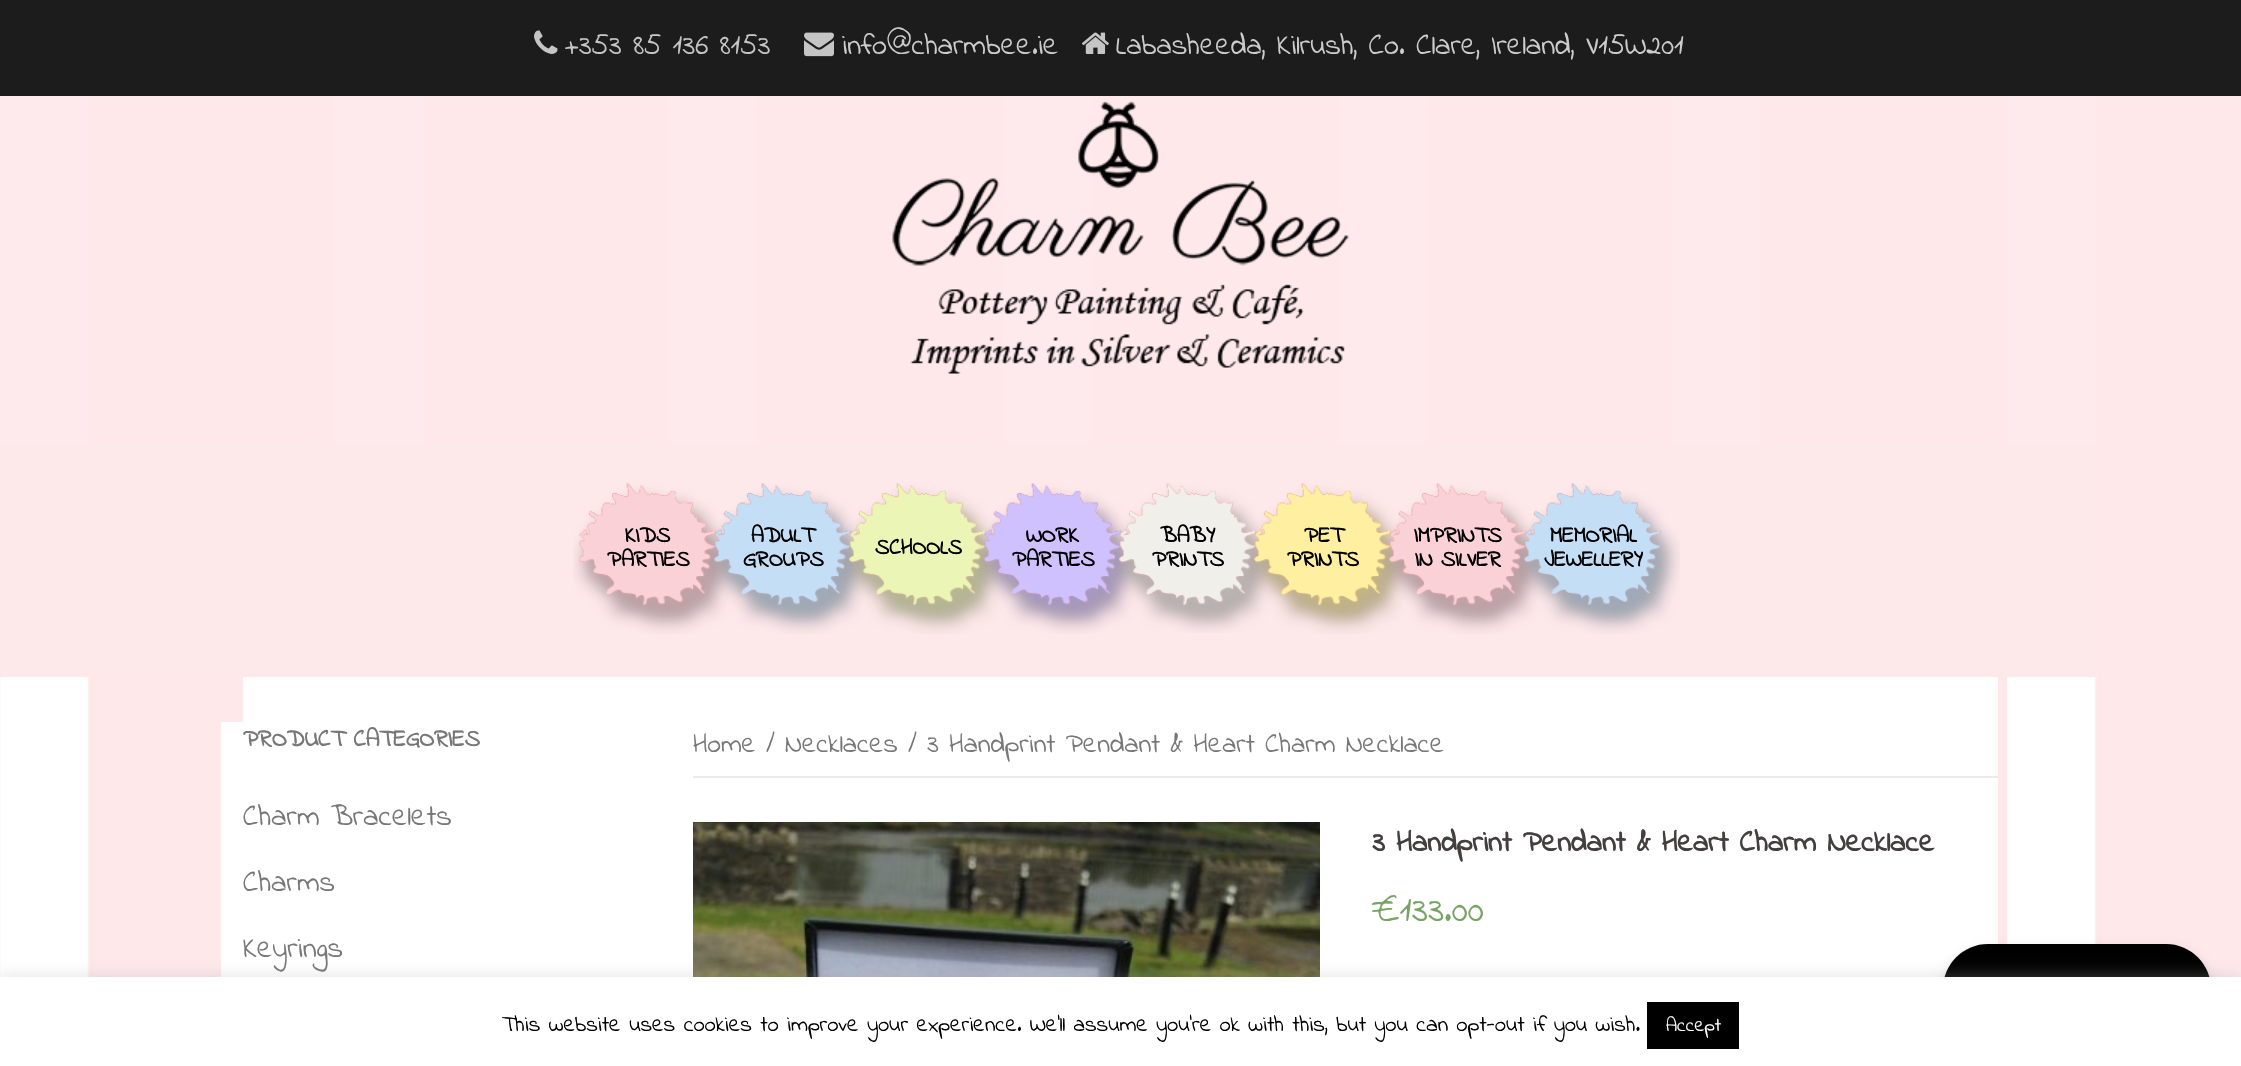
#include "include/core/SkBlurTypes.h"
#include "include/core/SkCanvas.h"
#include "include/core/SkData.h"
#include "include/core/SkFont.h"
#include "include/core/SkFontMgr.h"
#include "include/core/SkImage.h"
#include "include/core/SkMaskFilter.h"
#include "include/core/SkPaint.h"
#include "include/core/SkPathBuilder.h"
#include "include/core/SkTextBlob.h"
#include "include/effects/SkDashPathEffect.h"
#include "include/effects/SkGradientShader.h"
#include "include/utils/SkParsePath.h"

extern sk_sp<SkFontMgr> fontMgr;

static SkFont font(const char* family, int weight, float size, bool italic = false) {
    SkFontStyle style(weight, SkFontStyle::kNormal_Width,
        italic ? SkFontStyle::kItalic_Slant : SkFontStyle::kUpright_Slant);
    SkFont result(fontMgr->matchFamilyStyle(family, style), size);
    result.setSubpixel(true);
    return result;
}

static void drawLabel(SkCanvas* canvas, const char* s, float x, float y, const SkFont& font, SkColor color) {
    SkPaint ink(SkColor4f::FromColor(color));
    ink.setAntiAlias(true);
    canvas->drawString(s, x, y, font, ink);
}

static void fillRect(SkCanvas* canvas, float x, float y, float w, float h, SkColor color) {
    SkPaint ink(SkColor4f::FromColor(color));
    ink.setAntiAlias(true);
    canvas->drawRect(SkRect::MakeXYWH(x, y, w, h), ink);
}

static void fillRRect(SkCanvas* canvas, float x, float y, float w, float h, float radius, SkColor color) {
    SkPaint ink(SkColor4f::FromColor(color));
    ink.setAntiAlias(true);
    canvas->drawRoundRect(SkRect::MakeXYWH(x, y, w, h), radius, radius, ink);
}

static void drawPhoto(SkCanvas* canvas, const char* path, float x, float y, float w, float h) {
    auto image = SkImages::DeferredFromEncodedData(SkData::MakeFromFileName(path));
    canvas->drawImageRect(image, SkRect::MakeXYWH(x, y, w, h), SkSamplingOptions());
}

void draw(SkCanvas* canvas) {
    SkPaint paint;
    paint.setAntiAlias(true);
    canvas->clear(0xFFFFFFFF);
    drawPhoto(canvas, "assets/img1.png", 0, 96, 2241, 881);
    fillRect(canvas, 0, 0, 2241, 96, 0xFF1C1C1C);
    drawPhoto(canvas, "assets/img2.png", 534, 30, 24, 24);
    SkFont font1 = font("Indie Flower", 400, 30);
    drawLabel(canvas, "+353 85 136 8153", 565, 54, font1, 0xFFC5C5C5);
    drawPhoto(canvas, "assets/img3.png", 804, 32, 30, 25);
    drawLabel(canvas, "info@charmbee.ie", 842, 54, font1, 0xFFCCCCCC);
    drawPhoto(canvas, "assets/img4.png", 1082, 32, 27, 22);
    drawLabel(canvas, "Labasheeda, Kilrush, Co. Clare, Ireland, V15W201", 1116, 54, font1, 0xFFCCCCCC);
    fillRect(canvas, 0, 96, 2100, 348, 0xE6FEE8EA);
    drawPhoto(canvas, "assets/img5.png", 892, 101, 457, 273);
    fillRect(canvas, 0, 444, 2100, 233, 0xFFFDE8EA);
    drawPhoto(canvas, "assets/img6.png", 573, 483, 162, 151);
    SkFont font2 = font("Indie Flower", 700, 22.5f);
    drawLabel(canvas, "KIDS", 625, 542, font2, 0xFF000000);
    drawLabel(canvas, "PARTIES", 607, 566, font2, 0xFF000000);
    drawPhoto(canvas, "assets/img7.png", 708, 483, 162, 151);
    drawLabel(canvas, "ADULT", 751, 542, font2, 0xFF000000);
    drawLabel(canvas, "GROUPS", 743, 566, font2, 0xFF000000);
    drawPhoto(canvas, "assets/img8.png", 843, 483, 162, 151);
    drawLabel(canvas, "SCHOOLS", 875, 554, font2, 0xFF000000);
    drawPhoto(canvas, "assets/img9.png", 978, 483, 162, 151);
    drawLabel(canvas, "WORK", 1026, 542, font2, 0xFF000000);
    drawLabel(canvas, "PARTIES", 1012, 566, font2, 0xFF000000);
    drawPhoto(canvas, "assets/img10.png", 1114, 483, 161, 150);
    drawLabel(canvas, "BABY", 1160, 542, font2, 0xFF000000);
    drawLabel(canvas, "PRINTS", 1152, 566, font2, 0xFF000000);
    drawPhoto(canvas, "assets/img11.png", 1248, 483, 162, 151);
    drawLabel(canvas, "PET", 1304, 542, font2, 0xFF000000);
    drawLabel(canvas, "PRINTS", 1287, 566, font2, 0xFF000000);
    drawPhoto(canvas, "assets/img12.png", 1383, 483, 162, 151);
    drawLabel(canvas, "IMPRINTS", 1414, 542, font2, 0xFF000000);
    drawLabel(canvas, "IN SILVER", 1415, 566, font2, 0xFF000000);
    drawPhoto(canvas, "assets/img7.png", 1518, 483, 162, 151);
    drawLabel(canvas, "MEMORIAL", 1550, 542, font2, 0xFF000000);
    drawLabel(canvas, "JEWELLERY", 1544, 566, font2, 0xFF000000);
    fillRect(canvas, 243, 677, 1755, 300, 0xFFFFFFFF);
    fillRect(canvas, 221, 722, 22, 255, 0xFFFFFFFF);
    SkFont font3 = font("Indie Flower", 700, 24);
    drawLabel(canvas, "PRODUCT CATEGORIES", 243, 746, font3, 0xFF777777);
    drawLabel(canvas, "Charm Bracelets", 243, 825, font1, 0xFF777777);
    drawLabel(canvas, "Charms", 243, 891, font1, 0xFF777777);
    drawLabel(canvas, "Keyrings", 243, 957, font1, 0xFF777777);
    fillRect(canvas, 693, 776, 1305, 2, 0xFFEBE9EB);
    SkFont font4 = font("Indie Flower", 400, 27.6f);
    drawLabel(canvas, "Home / Necklaces / 3 Handprint Pendant & Heart Charm Necklace", 693, 752, font4, 0xFF777777);
    drawPhoto(canvas, "assets/img13.png", 693, 822, 627, 155);
    SkFont font5 = font("Indie Flower", 700, 30);
    drawLabel(canvas, "3 Handprint Pendant & Heart Charm Necklace", 1372, 851, font5, 0xFF443F3F);
    SkFont font6 = font("Indie Flower", 400, 37.5f);
    drawLabel(canvas, "€133.00", 1372, 921, font6, 0xFF77A464);
    paint.setColor(0x33000000);
    paint.setMaskFilter(SkMaskFilter::MakeBlur(kNormal_SkBlurStyle, 6));
    canvas->drawRoundRect(SkRect::MakeXYWH(1943, 950, 268, 93), 45, 45, paint);
    paint.setMaskFilter(nullptr);
    fillRRect(canvas, 1943, 944, 268, 93, 45, 0xFF000000);
    paint.setColor(0x4DACABAB);
    paint.setMaskFilter(SkMaskFilter::MakeBlur(kNormal_SkBlurStyle, 7.5f));
    canvas->drawRect(SkRect::MakeXYWH(0, 975, 2241, 90), paint);
    paint.setMaskFilter(nullptr);
    fillRect(canvas, 0, 977, 2241, 89, 0xFFFFFFFF);
    SkFont font7 = font("Indie Flower", 400, 22.5f);
    drawLabel(canvas, "This website uses cookies to improve your experience. We'll assume you're ok with this, but you can opt-out if you wish.", 502, 1031, font7, 0xFF000000);
    fillRect(canvas, 1647, 1002, 92, 47, 0xFF000000);
    SkFont font8 = font("Indie Flower", 400, 19.5f);
    drawLabel(canvas, "Accept", 1666, 1031, font8, 0xFFFFFFFF);
}
